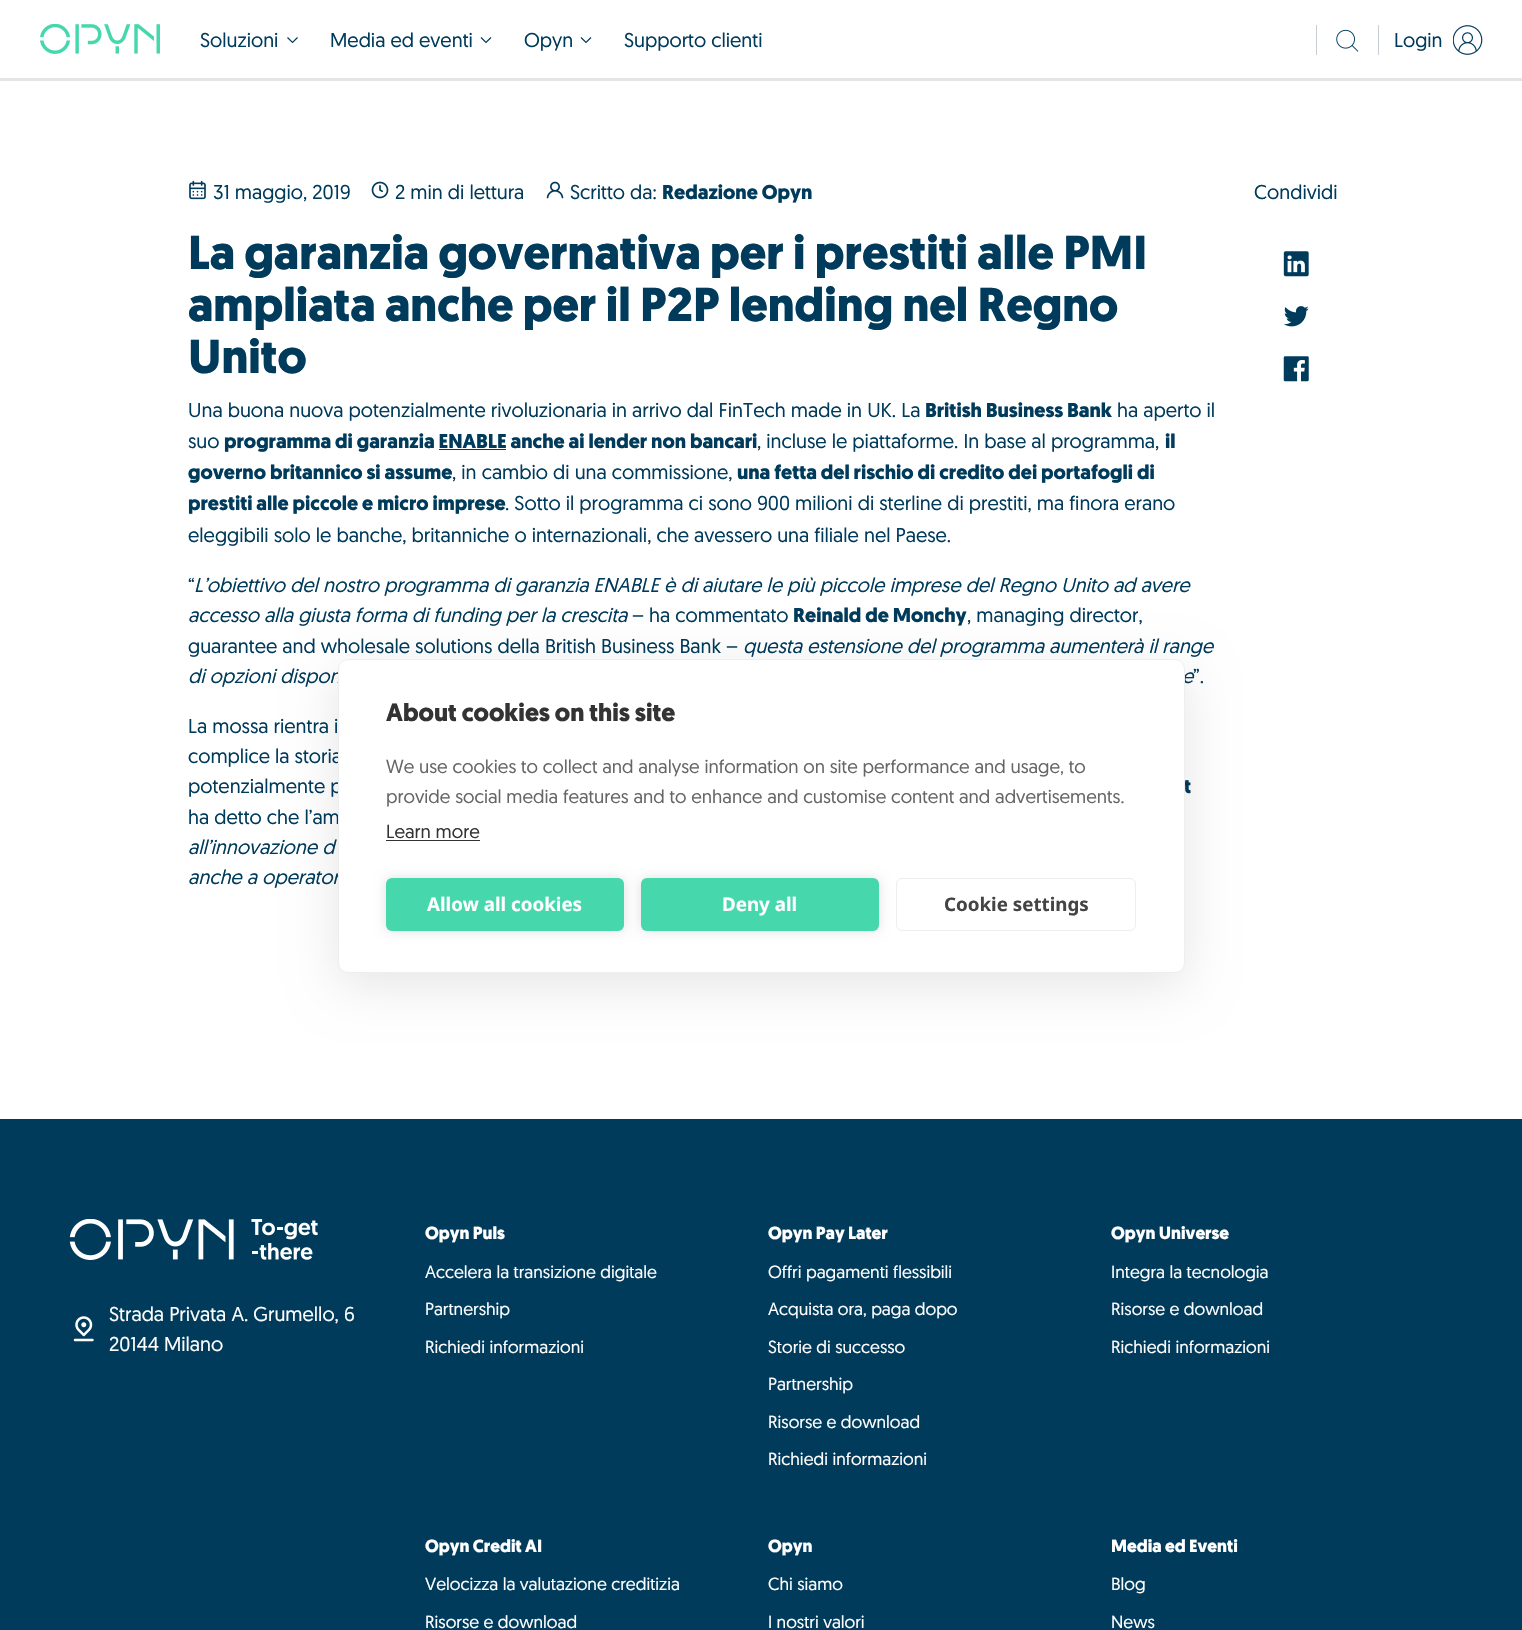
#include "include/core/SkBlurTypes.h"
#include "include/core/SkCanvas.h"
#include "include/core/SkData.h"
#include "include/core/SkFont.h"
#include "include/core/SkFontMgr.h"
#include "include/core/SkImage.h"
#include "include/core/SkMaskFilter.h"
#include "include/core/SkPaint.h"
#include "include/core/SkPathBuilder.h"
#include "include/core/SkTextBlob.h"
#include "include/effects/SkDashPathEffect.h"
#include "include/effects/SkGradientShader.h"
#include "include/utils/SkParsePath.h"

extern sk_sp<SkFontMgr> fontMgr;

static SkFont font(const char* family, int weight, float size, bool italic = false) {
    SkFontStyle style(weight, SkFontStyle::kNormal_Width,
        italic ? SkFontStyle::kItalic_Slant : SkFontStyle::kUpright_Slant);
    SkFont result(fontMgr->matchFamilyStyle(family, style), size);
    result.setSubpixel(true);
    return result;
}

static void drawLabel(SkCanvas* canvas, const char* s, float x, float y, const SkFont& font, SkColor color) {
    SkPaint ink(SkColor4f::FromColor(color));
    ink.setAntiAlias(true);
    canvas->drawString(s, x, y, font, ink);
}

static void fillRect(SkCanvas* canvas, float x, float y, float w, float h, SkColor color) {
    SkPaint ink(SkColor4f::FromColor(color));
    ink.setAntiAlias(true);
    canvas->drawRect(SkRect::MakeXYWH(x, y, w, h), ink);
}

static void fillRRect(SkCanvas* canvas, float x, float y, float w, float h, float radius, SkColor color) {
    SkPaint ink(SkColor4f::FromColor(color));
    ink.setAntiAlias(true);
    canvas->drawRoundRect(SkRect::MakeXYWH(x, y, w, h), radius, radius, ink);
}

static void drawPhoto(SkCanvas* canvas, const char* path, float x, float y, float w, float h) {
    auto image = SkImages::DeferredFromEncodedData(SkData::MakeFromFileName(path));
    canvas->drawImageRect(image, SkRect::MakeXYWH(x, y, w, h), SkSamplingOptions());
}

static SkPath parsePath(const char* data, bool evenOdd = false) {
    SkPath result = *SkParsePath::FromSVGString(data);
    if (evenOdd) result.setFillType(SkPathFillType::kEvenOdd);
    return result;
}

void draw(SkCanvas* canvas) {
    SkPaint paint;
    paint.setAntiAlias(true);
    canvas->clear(0xFFFFFFFF);
    fillRect(canvas, 0, 78, 1522, 3, 0xFFE7E4E4);
    drawPhoto(canvas, "assets/img1.png", 40, 24, 120, 30);
    SkFont font1 = font("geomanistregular", 400, 20);
    drawLabel(canvas, "Soluzioni", 200, 47, font1, 0xFF003B5C);
    paint.setStroke(true);
    paint.setStrokeWidth(1.2f);
    paint.setColor(0xFF003B5C);
    canvas->drawPath(parsePath("M287.5 37.5L292.5 42.5L297.5 37.5"), paint);
    drawLabel(canvas, "Media ed eventi", 330, 47, font1, 0xFF003B5C);
    canvas->drawPath(parsePath("M481 37.5L486 42.5L491 37.5"), paint);
    drawLabel(canvas, "Opyn", 524, 47, font1, 0xFF003B5C);
    canvas->drawPath(parsePath("M581 37.5L586 42.5L591 37.5"), paint);
    drawLabel(canvas, "Supporto clienti", 624, 47, font1, 0xFF003B5C);
    fillRect(canvas, 1316, 25, 1, 30, 0xFFC9CDD6);
    drawPhoto(canvas, "assets/img2.png", 1336, 29, 23, 23);
    fillRect(canvas, 1378, 25, 1, 30, 0xFFC9CDD6);
    drawLabel(canvas, "Login", 1394, 47, font1, 0xFF003B5C);
    drawPhoto(canvas, "assets/img3.png", 1453, 25, 30, 30);
    drawPhoto(canvas, "assets/img4.png", 189, 180, 17, 20);
    drawLabel(canvas, "31 maggio, 2019", 213, 199, font1, 0xFF003B5C);
    drawPhoto(canvas, "assets/img5.png", 371, 181, 18, 18);
    drawLabel(canvas, "2 min di lettura", 395, 199, font1, 0xFF003B5C);
    drawPhoto(canvas, "assets/img6.png", 546, 181, 18, 18);
    drawLabel(canvas, "Scritto da:", 570, 199, font1, 0xFF003B5C);
    SkFont font2 = font("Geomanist", 700, 20);
    drawLabel(canvas, "Redazione Opyn", 662, 199, font2, 0xFF003B5C);
    SkFont font3 = font("Geomanist", 700, 47.5f);
    drawLabel(canvas, "La garanzia governativa per i prestiti alle PMI", 188, 269, font3, 0xFF003B5C);
    drawLabel(canvas, "ampliata anche per il P2P lending nel Regno", 188, 321, font3, 0xFF003B5C);
    drawLabel(canvas, "Unito", 188, 373, font3, 0xFF003B5C);
    drawLabel(canvas, "Una buona nuova potenzialmente rivoluzionaria in arrivo dal FinTech made in UK. La", 188, 417, font1, 0xFF003B5C);
    drawLabel(canvas, "British Business Bank", 925, 417, font2, 0xFF003B5C);
    drawLabel(canvas, "ha aperto il", 1117, 417, font1, 0xFF003B5C);
    drawLabel(canvas, "suo", 188, 448, font1, 0xFF003B5C);
    drawLabel(canvas, "programma di garanzia ENABLE anche ai lender non bancari", 224, 448, font2, 0xFF003B5C);
    drawLabel(canvas, ", incluse le piattaforme. In base al programma,", 757, 448, font1, 0xFF003B5C);
    drawLabel(canvas, "il", 1165, 448, font2, 0xFF003B5C);
    fillRect(canvas, 439, 449, 67, 1, 0xFF003B5C);
    drawLabel(canvas, "governo britannico si assume", 188, 479, font2, 0xFF003B5C);
    drawLabel(canvas, ", in cambio di una commissione,", 452, 479, font1, 0xFF003B5C);
    drawLabel(canvas, "una fetta del rischio di credito dei portafogli di", 737, 479, font2, 0xFF003B5C);
    drawLabel(canvas, "prestiti alle piccole e micro imprese", 188, 510, font2, 0xFF003B5C);
    drawLabel(canvas, ". Sotto il programma ci sono 900 milioni di sterline di prestiti, ma finora erano", 505, 510, font1, 0xFF003B5C);
    drawLabel(canvas, "eleggibili solo le banche, britanniche o internazionali, che avessero una filiale nel Paese.", 188, 542, font1, 0xFF003B5C);
    drawLabel(canvas, "“", 188, 592, font1, 0xFF003B5C);
    SkFont font4 = font("geomanistregular", 400, 20, true);
    drawLabel(canvas, "L’obiettivo del nostro programma di garanzia ENABLE è di aiutare le più piccole imprese del Regno Unito ad avere", 194, 592, font4, 0xFF003B5C);
    drawLabel(canvas, "accesso alla giusta forma di funding per la crescita", 188, 622, font4, 0xFF003B5C);
    drawLabel(canvas, "– ha commentato", 632, 622, font1, 0xFF003B5C);
    drawLabel(canvas, "Reinald de Monchy", 793, 622, font2, 0xFF003B5C);
    drawLabel(canvas, ", managing director,", 967, 622, font1, 0xFF003B5C);
    drawLabel(canvas, "guarantee and wholesale solutions della British Business Bank –", 188, 653, font1, 0xFF003B5C);
    drawLabel(canvas, "questa estensione del programma aumenterà il range", 743, 653, font4, 0xFF003B5C);
    drawLabel(canvas, "di opzioni dispon", 188, 683, font4, 0xFF003B5C);
    drawLabel(canvas, "e", 1182, 683, font4, 0xFF003B5C);
    drawLabel(canvas, "”.", 1193, 683, font1, 0xFF003B5C);
    drawLabel(canvas, "La mossa rientra i", 188, 733, font1, 0xFF003B5C);
    drawLabel(canvas, "complice la storia", 188, 763, font1, 0xFF003B5C);
    drawLabel(canvas, "potenzialmente p", 188, 793, font1, 0xFF003B5C);
    drawLabel(canvas, "t", 1184, 793, font2, 0xFF003B5C);
    drawLabel(canvas, "ha detto che l’am", 188, 824, font1, 0xFF003B5C);
    drawLabel(canvas, "all’innovazione d", 188, 854, font4, 0xFF003B5C);
    drawLabel(canvas, "anche a operator", 188, 884, font4, 0xFF003B5C);
    drawLabel(canvas, "Condividi", 1254, 199, font1, 0xFF003B5C);
    drawPhoto(canvas, "assets/img7.png", 1283, 251, 26, 26);
    drawPhoto(canvas, "assets/img8.png", 1284, 306, 25, 21);
    drawPhoto(canvas, "assets/img9.png", 1283, 356, 26, 26);
    fillRect(canvas, 0, 1119, 1522, 511, 0xFF003B5C);
    drawPhoto(canvas, "assets/img10.png", 69, 1219, 249, 41);
    drawPhoto(canvas, "assets/img11.png", 73, 1316, 21, 26);
    drawLabel(canvas, "Strada Privata A. Grumello, 6", 109, 1321, font1, 0xFFFFFFFF);
    drawLabel(canvas, "20144 Milano", 109, 1351, font1, 0xFFFFFFFF);
    SkFont font5 = font("Geomanist", 700, 17.5f);
    drawLabel(canvas, "Opyn Puls", 425, 1239, font5, 0xFFFFFFFF);
    SkFont font6 = font("geomanistregular", 400, 17.5f);
    drawLabel(canvas, "Accelera la transizione digitale", 425, 1278, font6, 0xFFFFFFFF);
    drawLabel(canvas, "Partnership", 425, 1315, font6, 0xFFFFFFFF);
    drawLabel(canvas, "Richiedi informazioni", 425, 1353, font6, 0xFFFFFFFF);
    drawLabel(canvas, "Opyn Pay Later", 768, 1239, font5, 0xFFFFFFFF);
    drawLabel(canvas, "Offri pagamenti flessibili", 768, 1278, font6, 0xFFFFFFFF);
    drawLabel(canvas, "Acquista ora, paga dopo", 768, 1315, font6, 0xFFFFFFFF);
    drawLabel(canvas, "Storie di successo", 768, 1353, font6, 0xFFFFFFFF);
    drawLabel(canvas, "Partnership", 768, 1390, font6, 0xFFFFFFFF);
    drawLabel(canvas, "Risorse e download", 768, 1428, font6, 0xFFFFFFFF);
    drawLabel(canvas, "Richiedi informazioni", 768, 1465, font6, 0xFFFFFFFF);
    drawLabel(canvas, "Opyn Universe", 1111, 1239, font5, 0xFFFFFFFF);
    drawLabel(canvas, "Integra la tecnologia", 1111, 1278, font6, 0xFFFFFFFF);
    drawLabel(canvas, "Risorse e download", 1111, 1315, font6, 0xFFFFFFFF);
    drawLabel(canvas, "Richiedi informazioni", 1111, 1353, font6, 0xFFFFFFFF);
    drawLabel(canvas, "Opyn Credit AI", 425, 1552, font5, 0xFFFFFFFF);
    drawLabel(canvas, "Velocizza la valutazione creditizia", 425, 1590, font6, 0xFFFFFFFF);
    drawLabel(canvas, "Risorse e download", 425, 1628, font6, 0xFFFFFFFF);
    drawLabel(canvas, "Opyn", 768, 1552, font5, 0xFFFFFFFF);
    drawLabel(canvas, "Chi siamo", 768, 1590, font6, 0xFFFFFFFF);
    drawLabel(canvas, "I nostri valori", 768, 1628, font6, 0xFFFFFFFF);
    drawLabel(canvas, "Media ed Eventi", 1111, 1552, font5, 0xFFFFFFFF);
    drawLabel(canvas, "Blog", 1111, 1590, font6, 0xFFFFFFFF);
    drawLabel(canvas, "News", 1111, 1628, font6, 0xFFFFFFFF);
    paint.setStroke(false);
    paint.setColor(0x1A000000);
    paint.setMaskFilter(SkMaskFilter::MakeBlur(kNormal_SkBlurStyle, 25));
    canvas->drawRoundRect(SkRect::MakeXYWH(338, 671, 847, 314), 10, 10, paint);
    paint.setMaskFilter(nullptr);
    paint.setColor(0xFFFFFFFF);
    canvas->drawRoundRect(SkRect::MakeXYWH(338.5f, 659.5f, 846, 313), 9.5f, 9.5f, paint);
    paint.setStroke(true);
    paint.setStrokeWidth(1);
    paint.setColor(0xFFEEEEEE);
    canvas->drawRoundRect(SkRect::MakeXYWH(338.5f, 659.5f, 846, 313), 9.5f, 9.5f, paint);
    SkFont font7 = font("Geomanist", 700, 25);
    drawLabel(canvas, "About cookies on this site", 386, 721, font7, 0xFF333333);
    SkFont font8 = font("geomanistregular", 400, 18.75f);
    drawLabel(canvas, "We use cookies to collect and analyse information on site performance and usage, to", 386, 773, font8, 0xFF666666);
    drawLabel(canvas, "provide social media features and to enhance and customise content and advertisements.", 386, 803, font8, 0xFF666666);
    drawLabel(canvas, "Learn more", 386, 838, font8, 0xFF333333);
    fillRect(canvas, 386, 840, 94, 1, 0xFF333333);
    paint.setStroke(false);
    paint.setColor(0x1F000000);
    paint.setMaskFilter(SkMaskFilter::MakeBlur(kNormal_SkBlurStyle, 6));
    canvas->drawRoundRect(SkRect::MakeXYWH(386, 878, 238, 53), 6, 6, paint);
    paint.setMaskFilter(nullptr);
    fillRRect(canvas, 386, 878, 238, 53, 6, 0xFF47D7AC);
    SkFont font9 = font("Noto Sans", 700, 18.75f);
    drawLabel(canvas, "Allow all cookies", 427, 911, font9, 0xFFFFFFFF);
    paint.setMaskFilter(SkMaskFilter::MakeBlur(kNormal_SkBlurStyle, 6));
    canvas->drawRoundRect(SkRect::MakeXYWH(641, 878, 238, 53), 6, 6, paint);
    paint.setMaskFilter(nullptr);
    fillRRect(canvas, 641, 878, 238, 53, 6, 0xFF47D7AC);
    drawLabel(canvas, "Deny all", 722, 911, font9, 0xFFFFFFFF);
    paint.setStroke(true);
    paint.setColor(0xFFEEEEEE);
    canvas->drawRoundRect(SkRect::MakeXYWH(896.5f, 878.5f, 239, 52), 5.5f, 5.5f, paint);
    drawLabel(canvas, "Cookie settings", 944, 911, font9, 0xFF444444);
}
